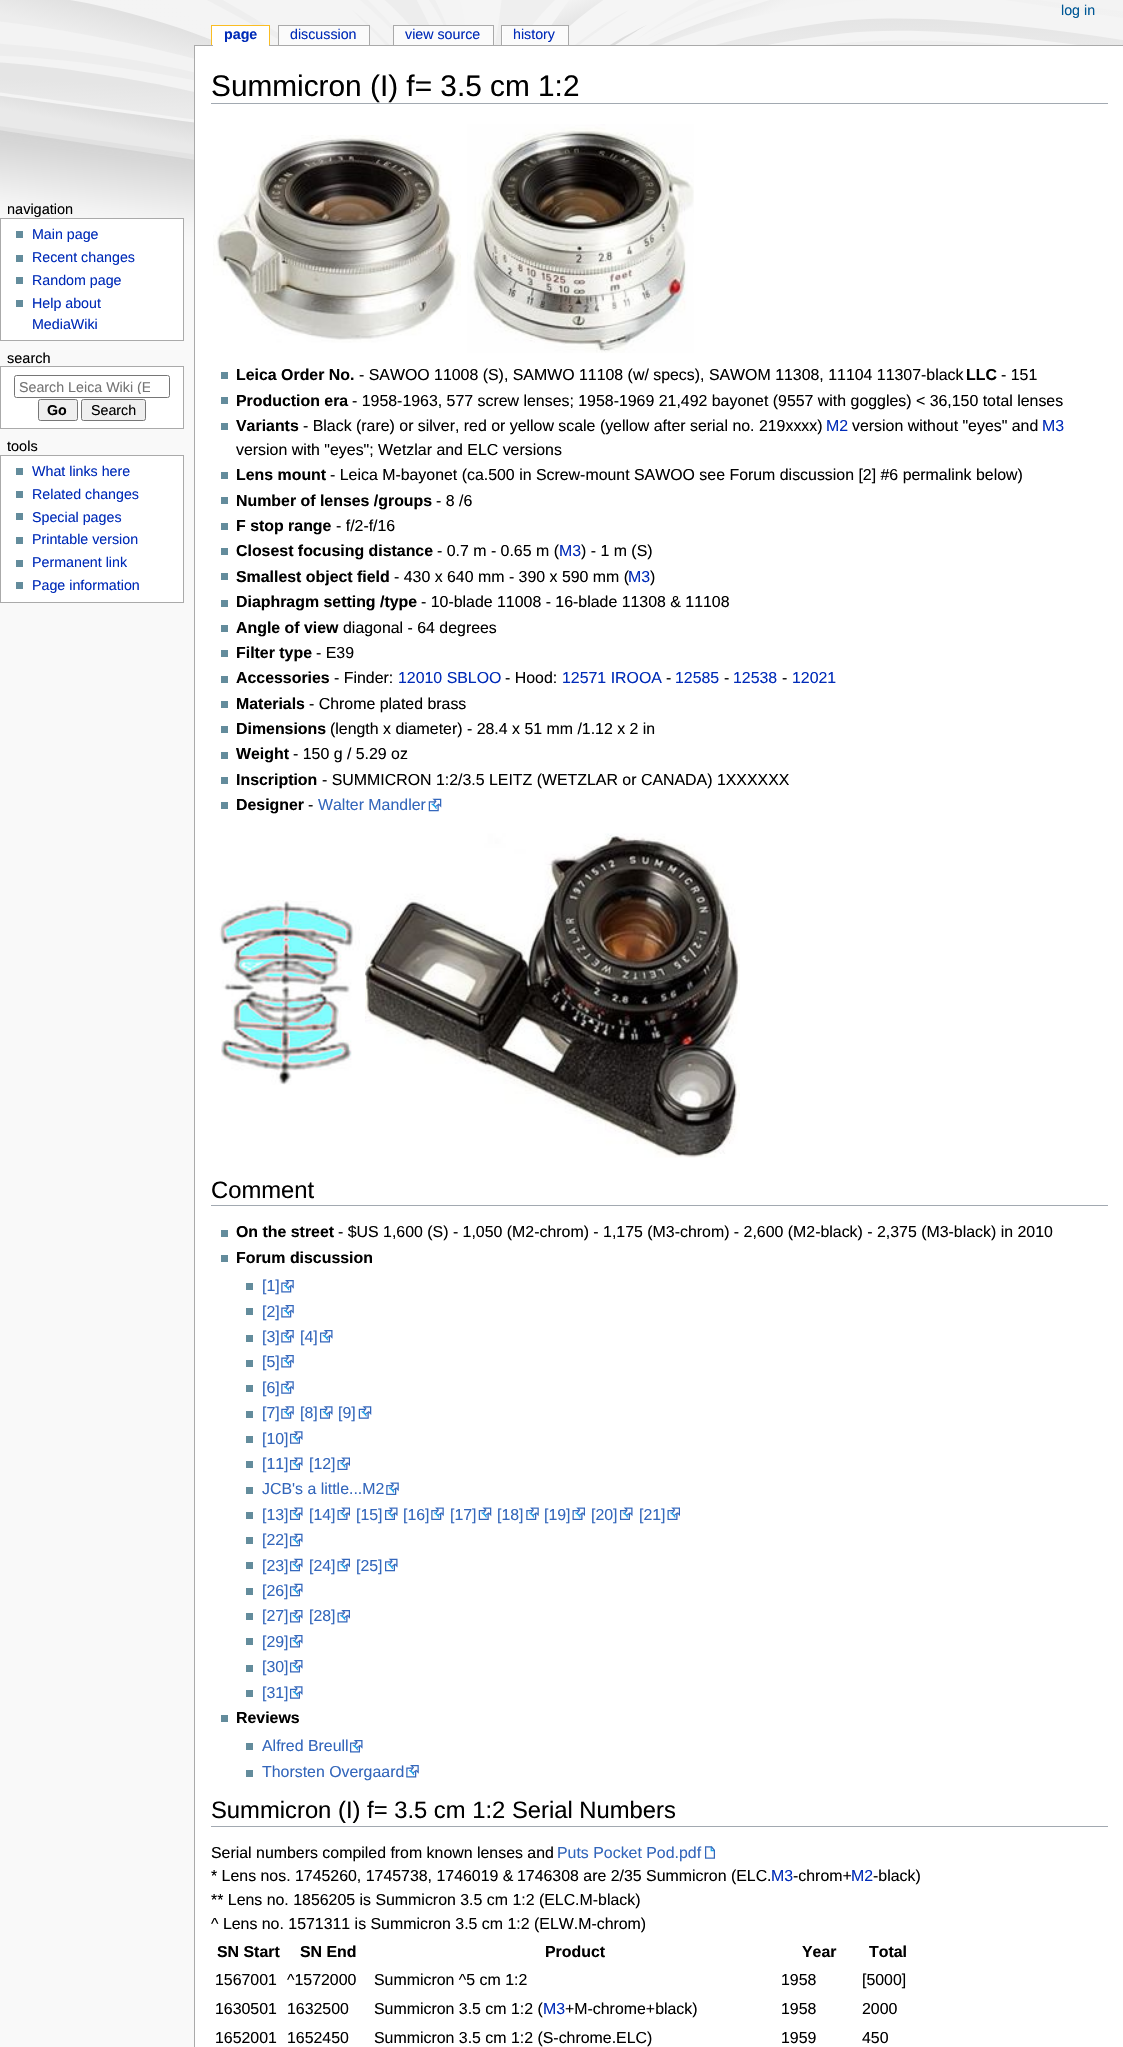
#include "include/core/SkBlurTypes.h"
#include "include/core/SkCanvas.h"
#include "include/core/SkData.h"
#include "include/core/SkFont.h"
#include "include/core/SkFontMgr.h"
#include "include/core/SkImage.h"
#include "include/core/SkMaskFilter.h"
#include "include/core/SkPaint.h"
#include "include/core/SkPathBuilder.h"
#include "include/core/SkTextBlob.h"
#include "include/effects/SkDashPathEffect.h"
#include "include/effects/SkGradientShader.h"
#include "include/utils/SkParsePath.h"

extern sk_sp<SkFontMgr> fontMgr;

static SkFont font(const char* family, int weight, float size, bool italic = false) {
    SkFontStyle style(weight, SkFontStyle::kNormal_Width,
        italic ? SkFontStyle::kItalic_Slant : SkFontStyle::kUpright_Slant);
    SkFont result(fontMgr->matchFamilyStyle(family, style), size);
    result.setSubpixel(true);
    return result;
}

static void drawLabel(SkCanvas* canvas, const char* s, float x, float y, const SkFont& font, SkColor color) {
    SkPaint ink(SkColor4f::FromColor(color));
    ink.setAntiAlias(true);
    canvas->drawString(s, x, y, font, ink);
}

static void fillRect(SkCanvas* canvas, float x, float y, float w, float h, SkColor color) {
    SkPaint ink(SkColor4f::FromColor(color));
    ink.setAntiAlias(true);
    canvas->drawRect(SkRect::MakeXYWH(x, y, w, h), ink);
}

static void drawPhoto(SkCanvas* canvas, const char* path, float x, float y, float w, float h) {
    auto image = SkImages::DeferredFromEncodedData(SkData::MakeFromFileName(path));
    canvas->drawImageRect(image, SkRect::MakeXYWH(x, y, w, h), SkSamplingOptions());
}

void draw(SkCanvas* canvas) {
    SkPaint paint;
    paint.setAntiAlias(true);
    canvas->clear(0xFFF9F9F9);
    drawPhoto(canvas, "assets/img1.png", 0, 0, 1123, 263);
    SkFont font1 = font("Liberation Sans", 400, 14.25f);
    drawLabel(canvas, "log in", 1061, 15, font1, 0xFF005896);
    fillRect(canvas, 194, 45, 929, 1, 0xFFAAAAAA);
    fillRect(canvas, 213, 26, 56, 20, 0xFFFFFFFF);
    SkFont font2 = font("Liberation Sans", 700, 14.25f);
    drawLabel(canvas, "page", 224, 39, font2, 0xFF002BB8);
    fillRect(canvas, 212, 26, 1, 19, 0xFFFFFFFF);
    fillRect(canvas, 211, 25, 59, 1, 0xFFFABD23);
    fillRect(canvas, 269, 25, 1, 20, 0xFFFABD23);
    fillRect(canvas, 211, 25, 1, 20, 0xFFFABD23);
    fillRect(canvas, 279, 26, 90, 19, 0xFFFBFBFB);
    drawLabel(canvas, "discussion", 290, 39, font1, 0xFF002BB8);
    fillRect(canvas, 278, 25, 92, 1, 0xFFAAAAAA);
    fillRect(canvas, 369, 25, 1, 20, 0xFFAAAAAA);
    fillRect(canvas, 278, 25, 1, 20, 0xFFAAAAAA);
    fillRect(canvas, 394, 26, 99, 19, 0xFFFBFBFB);
    drawLabel(canvas, "view source", 405, 39, font1, 0xFF002BB8);
    fillRect(canvas, 393, 25, 101, 1, 0xFFAAAAAA);
    fillRect(canvas, 493, 25, 1, 20, 0xFFAAAAAA);
    fillRect(canvas, 393, 25, 1, 20, 0xFFAAAAAA);
    fillRect(canvas, 503, 26, 65, 19, 0xFFFBFBFB);
    drawLabel(canvas, "history", 513, 39, font1, 0xFF002BB8);
    fillRect(canvas, 502, 26, 1, 19, 0xFFFFFFFF);
    fillRect(canvas, 501, 25, 68, 1, 0xFFAAAAAA);
    fillRect(canvas, 568, 25, 1, 20, 0xFFAAAAAA);
    fillRect(canvas, 501, 25, 1, 20, 0xFFAAAAAA);
    SkFont font3 = font("Liberation Sans", 400, 14.5f);
    drawLabel(canvas, "navigation", 7, 214, font3, 0xFF000000);
    paint.setColor(0xFFFFFFFF);
    canvas->drawRect(SkRect::MakeXYWH(0.5f, 218.5f, 183, 122), paint);
    paint.setStroke(true);
    paint.setStrokeWidth(1);
    paint.setColor(0xFFAAAAAA);
    canvas->drawRect(SkRect::MakeXYWH(0.5f, 218.5f, 183, 122), paint);
    fillRect(canvas, 16, 231, 7, 7, 0xFF638C9C);
    drawLabel(canvas, "Main page", 32, 239, font1, 0xFF002BB8);
    fillRect(canvas, 16, 255, 7, 7, 0xFF638C9C);
    drawLabel(canvas, "Recent changes", 32, 262, font1, 0xFF002BB8);
    fillRect(canvas, 16, 277, 7, 7, 0xFF638C9C);
    drawLabel(canvas, "Random page", 32, 285, font1, 0xFF002BB8);
    fillRect(canvas, 16, 300, 7, 7, 0xFF638C9C);
    drawLabel(canvas, "Help about", 32, 308, font1, 0xFF002BB8);
    drawLabel(canvas, "MediaWiki", 32, 329, font1, 0xFF002BB8);
    drawLabel(canvas, "search", 7, 363, font3, 0xFF000000);
    paint.setStroke(false);
    paint.setColor(0xFFFFFFFF);
    canvas->drawRect(SkRect::MakeXYWH(0.5f, 366.5f, 183, 62), paint);
    paint.setStroke(true);
    paint.setColor(0xFFAAAAAA);
    canvas->drawRect(SkRect::MakeXYWH(0.5f, 366.5f, 183, 62), paint);
    paint.setColor(0xFF767676);
    canvas->drawRoundRect(SkRect::MakeXYWH(14.5f, 375.5f, 155, 22), 2, 2, paint);
    canvas->save();
    canvas->clipRect(SkRect::MakeXYWH(19, 379, 131, 15));
    drawLabel(canvas, "Search Leica Wiki (E", 19, 392, font1, 0xFF757575);
    canvas->restore();
    paint.setStroke(false);
    paint.setColor(0xFFEFEFEF);
    canvas->drawRoundRect(SkRect::MakeXYWH(38.5f, 399.5f, 39, 21), 2, 2, paint);
    paint.setStroke(true);
    paint.setColor(0xFF767676);
    canvas->drawRoundRect(SkRect::MakeXYWH(38.5f, 399.5f, 39, 21), 2, 2, paint);
    drawLabel(canvas, "Go", 47, 415, font2, 0xFF000000);
    paint.setStroke(false);
    paint.setColor(0xFFEFEFEF);
    canvas->drawRoundRect(SkRect::MakeXYWH(81.5f, 399.5f, 64, 21), 2, 2, paint);
    paint.setStroke(true);
    paint.setColor(0xFF767676);
    canvas->drawRoundRect(SkRect::MakeXYWH(81.5f, 399.5f, 64, 21), 2, 2, paint);
    drawLabel(canvas, "Search", 91, 415, font1, 0xFF000000);
    drawLabel(canvas, "tools", 7, 451, font3, 0xFF000000);
    paint.setStroke(false);
    paint.setColor(0xFFFFFFFF);
    canvas->drawRect(SkRect::MakeXYWH(0.5f, 455.5f, 183, 147), paint);
    paint.setStroke(true);
    paint.setColor(0xFFAAAAAA);
    canvas->drawRect(SkRect::MakeXYWH(0.5f, 455.5f, 183, 147), paint);
    fillRect(canvas, 16, 468, 7, 7, 0xFF638C9C);
    drawLabel(canvas, "What links here", 32, 476, font1, 0xFF002BB8);
    fillRect(canvas, 16, 491, 7, 7, 0xFF638C9C);
    drawLabel(canvas, "Related changes", 32, 499, font1, 0xFF002BB8);
    fillRect(canvas, 16, 513, 7, 7, 0xFF638C9C);
    drawLabel(canvas, "Special pages", 32, 522, font1, 0xFF002BB8);
    fillRect(canvas, 16, 537, 7, 7, 0xFF638C9C);
    drawLabel(canvas, "Printable version", 32, 544, font1, 0xFF002BB8);
    fillRect(canvas, 16, 560, 7, 7, 0xFF638C9C);
    drawLabel(canvas, "Permanent link", 32, 567, font1, 0xFF002BB8);
    fillRect(canvas, 16, 582, 7, 7, 0xFF638C9C);
    drawLabel(canvas, "Page information", 32, 590, font1, 0xFF002BB8);
    fillRect(canvas, 195, 46, 928, 2001, 0xFFFFFFFF);
    fillRect(canvas, 194, 45, 1, 2002, 0xFFAAAAAA);
    fillRect(canvas, 211, 103, 897, 1, 0xFFA2A9B1);
    SkFont font4 = font("Liberation Sans", 400, 29.8f);
    drawLabel(canvas, "Summicron (I) f= 3.5 cm 1:2", 211, 96, font4, 0xFF000000);
    drawPhoto(canvas, "assets/img2.png", 213, 135, 248, 208);
    drawPhoto(canvas, "assets/img3.png", 467, 124, 227, 229);
    fillRect(canvas, 221, 372, 7, 7, 0xFF638C9C);
    SkFont font5 = font("Liberation Sans", 700, 15.9f);
    drawLabel(canvas, "Leica Order No.", 236, 380, font5, 0xFF000000);
    SkFont font6 = font("Liberation Sans", 400, 15.9f);
    drawLabel(canvas, "- SAWOO 11008 (S), SAMWO 11108 (w/ specs), SAWOM 11308, 11104 11307-black", 359, 380, font6, 0xFF000000);
    drawLabel(canvas, "LLC", 966, 380, font5, 0xFF000000);
    drawLabel(canvas, "- 151", 1001, 380, font6, 0xFF000000);
    fillRect(canvas, 221, 397, 7, 7, 0xFF638C9C);
    drawLabel(canvas, "Production era", 236, 406, font5, 0xFF000000);
    drawLabel(canvas, "- 1958-1963, 577 screw lenses; 1958-1969 21,492 bayonet (9557 with goggles) < 36,150 total lenses", 352, 406, font6, 0xFF000000);
    fillRect(canvas, 221, 423, 7, 7, 0xFF638C9C);
    drawLabel(canvas, "Variants", 236, 431, font5, 0xFF000000);
    drawLabel(canvas, "- Black (rare) or silver, red or yellow scale (yellow after serial no. 219xxxx)", 303, 431, font6, 0xFF000000);
    drawLabel(canvas, "M2", 826, 431, font6, 0xFF002BB8);
    drawLabel(canvas, "version without \"eyes\" and", 852, 431, font6, 0xFF000000);
    drawLabel(canvas, "M3", 1042, 431, font6, 0xFF002BB8);
    drawLabel(canvas, "version with \"eyes\"; Wetzlar and ELC versions", 236, 455, font6, 0xFF000000);
    fillRect(canvas, 221, 472, 7, 7, 0xFF638C9C);
    drawLabel(canvas, "Lens mount", 236, 480, font5, 0xFF000000);
    drawLabel(canvas, "- Leica M-bayonet (ca.500 in Screw-mount SAWOO see Forum discussion [2] #6 permalink below)", 330, 480, font6, 0xFF000000);
    fillRect(canvas, 221, 497, 7, 7, 0xFF638C9C);
    drawLabel(canvas, "Number of lenses /groups", 236, 506, font5, 0xFF000000);
    drawLabel(canvas, "- 8 /6", 436, 506, font6, 0xFF000000);
    fillRect(canvas, 221, 523, 7, 7, 0xFF638C9C);
    drawLabel(canvas, "F stop range", 236, 531, font5, 0xFF000000);
    drawLabel(canvas, "- f/2-f/16", 336, 531, font6, 0xFF000000);
    fillRect(canvas, 221, 548, 7, 7, 0xFF638C9C);
    drawLabel(canvas, "Closest focusing distance", 236, 556, font5, 0xFF000000);
    drawLabel(canvas, "- 0.7 m - 0.65 m (", 437, 556, font6, 0xFF000000);
    drawLabel(canvas, "M3", 559, 556, font6, 0xFF002BB8);
    drawLabel(canvas, ") - 1 m (S)", 581, 556, font6, 0xFF000000);
    fillRect(canvas, 221, 573, 7, 7, 0xFF638C9C);
    drawLabel(canvas, "Smallest object field", 236, 582, font5, 0xFF000000);
    drawLabel(canvas, "- 430 x 640 mm - 390 x 590 mm (", 394, 582, font6, 0xFF000000);
    drawLabel(canvas, "M3", 628, 582, font6, 0xFF002BB8);
    drawLabel(canvas, ")", 650, 582, font6, 0xFF000000);
    fillRect(canvas, 221, 600, 7, 7, 0xFF638C9C);
    drawLabel(canvas, "Diaphragm setting /type", 236, 607, font5, 0xFF000000);
    drawLabel(canvas, "- 10-blade 11008 - 16-blade 11308 & 11108", 421, 607, font6, 0xFF000000);
    fillRect(canvas, 221, 625, 7, 7, 0xFF638C9C);
    drawLabel(canvas, "Angle of view", 236, 633, font5, 0xFF000000);
    drawLabel(canvas, "diagonal - 64 degrees", 343, 633, font6, 0xFF000000);
    fillRect(canvas, 221, 650, 7, 7, 0xFF638C9C);
    drawLabel(canvas, "Filter type", 236, 658, font5, 0xFF000000);
    drawLabel(canvas, "- E39", 316, 658, font6, 0xFF000000);
    fillRect(canvas, 221, 676, 7, 7, 0xFF638C9C);
    drawLabel(canvas, "Accessories", 236, 683, font5, 0xFF000000);
    drawLabel(canvas, "- Finder:", 334, 683, font6, 0xFF000000);
    drawLabel(canvas, "12010 SBLOO", 398, 683, font6, 0xFF002BB8);
    drawLabel(canvas, "- Hood:", 505, 683, font6, 0xFF000000);
    drawLabel(canvas, "12571 IROOA", 562, 683, font6, 0xFF002BB8);
    drawLabel(canvas, "-", 666, 683, font6, 0xFF000000);
    drawLabel(canvas, "12585", 675, 683, font6, 0xFF002BB8);
    drawLabel(canvas, "-", 724, 683, font6, 0xFF000000);
    drawLabel(canvas, "12538", 733, 683, font6, 0xFF002BB8);
    drawLabel(canvas, "-", 782, 683, font6, 0xFF000000);
    drawLabel(canvas, "12021", 792, 683, font6, 0xFF002BB8);
    fillRect(canvas, 221, 701, 7, 7, 0xFF638C9C);
    drawLabel(canvas, "Materials", 236, 709, font5, 0xFF000000);
    drawLabel(canvas, "- Chrome plated brass", 309, 709, font6, 0xFF000000);
    fillRect(canvas, 221, 726, 7, 7, 0xFF638C9C);
    drawLabel(canvas, "Dimensions", 236, 734, font5, 0xFF000000);
    drawLabel(canvas, "(length x diameter) - 28.4 x 51 mm /1.12 x 2 in", 330, 734, font6, 0xFF000000);
    fillRect(canvas, 221, 752, 7, 7, 0xFF638C9C);
    drawLabel(canvas, "Weight", 236, 759, font5, 0xFF000000);
    drawLabel(canvas, "- 150 g / 5.29 oz", 293, 759, font6, 0xFF000000);
    fillRect(canvas, 221, 777, 7, 7, 0xFF638C9C);
    drawLabel(canvas, "Inscription", 236, 785, font5, 0xFF000000);
    drawLabel(canvas, "- SUMMICRON 1:2/3.5 LEITZ (WETZLAR or CANADA) 1XXXXXX", 322, 785, font6, 0xFF000000);
    fillRect(canvas, 221, 802, 7, 7, 0xFF638C9C);
    drawLabel(canvas, "Designer", 236, 810, font5, 0xFF000000);
    drawLabel(canvas, "-", 308, 810, font6, 0xFF000000);
    drawLabel(canvas, "Walter Mandler", 318, 810, font6, 0xFF3366BB);
    drawPhoto(canvas, "assets/img4.png", 428, 798, 14, 14);
    drawPhoto(canvas, "assets/img5.png", 219, 900, 141, 185);
    drawPhoto(canvas, "assets/img6.png", 365, 833, 375, 325);
    fillRect(canvas, 211, 1205, 897, 1, 0xFFA2A9B1);
    SkFont font7 = font("Liberation Sans", 400, 23.8f);
    drawLabel(canvas, "Comment", 211, 1198, font7, 0xFF000000);
    fillRect(canvas, 221, 1230, 7, 7, 0xFF638C9C);
    drawLabel(canvas, "On the street", 236, 1237, font5, 0xFF000000);
    drawLabel(canvas, "- $US 1,600 (S) - 1,050 (M2-chrom) - 1,175 (M3-chrom) - 2,600 (M2-black) - 2,375 (M3-black) in 2010", 338, 1237, font6, 0xFF000000);
    fillRect(canvas, 221, 1255, 7, 7, 0xFF638C9C);
    drawLabel(canvas, "Forum discussion", 236, 1263, font5, 0xFF000000);
    fillRect(canvas, 246, 1283, 7, 7, 0xFF638C9C);
    drawLabel(canvas, "[1]", 262, 1291, font6, 0xFF3366BB);
    drawPhoto(canvas, "assets/img7.png", 281, 1280, 13, 13);
    fillRect(canvas, 246, 1308, 7, 7, 0xFF638C9C);
    drawLabel(canvas, "[2]", 262, 1317, font6, 0xFF3366BB);
    drawPhoto(canvas, "assets/img7.png", 281, 1305, 13, 13);
    fillRect(canvas, 246, 1335, 7, 7, 0xFF638C9C);
    drawLabel(canvas, "[3]", 262, 1342, font6, 0xFF3366BB);
    drawPhoto(canvas, "assets/img7.png", 281, 1330, 13, 13);
    drawLabel(canvas, "[4]", 300, 1342, font6, 0xFF3366BB);
    drawPhoto(canvas, "assets/img8.png", 320, 1330, 13, 13);
    fillRect(canvas, 246, 1360, 7, 7, 0xFF638C9C);
    drawLabel(canvas, "[5]", 262, 1367, font6, 0xFF3366BB);
    drawPhoto(canvas, "assets/img7.png", 281, 1355, 13, 13);
    fillRect(canvas, 246, 1385, 7, 7, 0xFF638C9C);
    drawLabel(canvas, "[6]", 262, 1393, font6, 0xFF3366BB);
    drawPhoto(canvas, "assets/img9.png", 281, 1381, 13, 13);
    fillRect(canvas, 246, 1411, 7, 7, 0xFF638C9C);
    drawLabel(canvas, "[7]", 262, 1418, font6, 0xFF3366BB);
    drawPhoto(canvas, "assets/img9.png", 281, 1406, 13, 13);
    drawLabel(canvas, "[8]", 300, 1418, font6, 0xFF3366BB);
    drawPhoto(canvas, "assets/img10.png", 320, 1406, 13, 13);
    drawLabel(canvas, "[9]", 338, 1418, font6, 0xFF3366BB);
    drawPhoto(canvas, "assets/img11.png", 358, 1406, 14, 13);
    fillRect(canvas, 246, 1436, 7, 7, 0xFF638C9C);
    drawLabel(canvas, "[10]", 262, 1444, font6, 0xFF3366BB);
    drawPhoto(canvas, "assets/img10.png", 290, 1431, 13, 13);
    fillRect(canvas, 246, 1461, 7, 7, 0xFF638C9C);
    drawLabel(canvas, "[11]", 262, 1469, font6, 0xFF3366BB);
    drawPhoto(canvas, "assets/img12.png", 290, 1457, 13, 13);
    drawLabel(canvas, "[12]", 309, 1469, font6, 0xFF3366BB);
    drawPhoto(canvas, "assets/img13.png", 337, 1457, 13, 13);
    fillRect(canvas, 246, 1487, 7, 7, 0xFF638C9C);
    drawLabel(canvas, "JCB's a little...M2", 262, 1494, font6, 0xFF3366BB);
    drawPhoto(canvas, "assets/img14.png", 386, 1482, 13, 13);
    fillRect(canvas, 246, 1512, 7, 7, 0xFF638C9C);
    drawLabel(canvas, "[13]", 262, 1520, font6, 0xFF3366BB);
    drawPhoto(canvas, "assets/img12.png", 290, 1507, 13, 13);
    drawLabel(canvas, "[14]", 309, 1520, font6, 0xFF3366BB);
    drawPhoto(canvas, "assets/img13.png", 337, 1507, 13, 13);
    drawLabel(canvas, "[15]", 356, 1520, font6, 0xFF3366BB);
    drawPhoto(canvas, "assets/img12.png", 385, 1507, 13, 13);
    drawLabel(canvas, "[16]", 403, 1520, font6, 0xFF3366BB);
    drawPhoto(canvas, "assets/img14.png", 431, 1507, 13, 13);
    drawLabel(canvas, "[17]", 450, 1520, font6, 0xFF3366BB);
    drawPhoto(canvas, "assets/img15.png", 478, 1507, 14, 13);
    drawLabel(canvas, "[18]", 497, 1520, font6, 0xFF3366BB);
    drawPhoto(canvas, "assets/img14.png", 526, 1507, 13, 13);
    drawLabel(canvas, "[19]", 544, 1520, font6, 0xFF3366BB);
    drawPhoto(canvas, "assets/img13.png", 572, 1507, 13, 13);
    drawLabel(canvas, "[20]", 591, 1520, font6, 0xFF3366BB);
    drawPhoto(canvas, "assets/img12.png", 620, 1507, 13, 13);
    drawLabel(canvas, "[21]", 639, 1520, font6, 0xFF3366BB);
    drawPhoto(canvas, "assets/img13.png", 667, 1507, 13, 13);
    fillRect(canvas, 246, 1537, 7, 7, 0xFF638C9C);
    drawLabel(canvas, "[22]", 262, 1545, font6, 0xFF3366BB);
    drawPhoto(canvas, "assets/img16.png", 290, 1533, 13, 14);
    fillRect(canvas, 246, 1562, 7, 7, 0xFF638C9C);
    drawLabel(canvas, "[23]", 262, 1571, font6, 0xFF3366BB);
    drawPhoto(canvas, "assets/img16.png", 290, 1558, 13, 14);
    drawLabel(canvas, "[24]", 309, 1571, font6, 0xFF3366BB);
    drawPhoto(canvas, "assets/img17.png", 337, 1558, 13, 14);
    drawLabel(canvas, "[25]", 356, 1571, font6, 0xFF3366BB);
    drawPhoto(canvas, "assets/img16.png", 385, 1558, 13, 14);
    fillRect(canvas, 246, 1588, 7, 7, 0xFF638C9C);
    drawLabel(canvas, "[26]", 262, 1596, font6, 0xFF3366BB);
    drawPhoto(canvas, "assets/img16.png", 290, 1583, 13, 14);
    fillRect(canvas, 246, 1613, 7, 7, 0xFF638C9C);
    drawLabel(canvas, "[27]", 262, 1621, font6, 0xFF3366BB);
    drawPhoto(canvas, "assets/img8.png", 290, 1610, 13, 13);
    drawLabel(canvas, "[28]", 309, 1621, font6, 0xFF3366BB);
    drawPhoto(canvas, "assets/img18.png", 337, 1610, 13, 13);
    fillRect(canvas, 246, 1638, 7, 7, 0xFF638C9C);
    drawLabel(canvas, "[29]", 262, 1647, font6, 0xFF3366BB);
    drawPhoto(canvas, "assets/img8.png", 290, 1635, 13, 13);
    fillRect(canvas, 246, 1665, 7, 7, 0xFF638C9C);
    drawLabel(canvas, "[30]", 262, 1672, font6, 0xFF3366BB);
    drawPhoto(canvas, "assets/img8.png", 290, 1660, 13, 13);
    fillRect(canvas, 246, 1690, 7, 7, 0xFF638C9C);
    drawLabel(canvas, "[31]", 262, 1698, font6, 0xFF3366BB);
    drawPhoto(canvas, "assets/img10.png", 290, 1686, 13, 13);
    fillRect(canvas, 221, 1715, 7, 7, 0xFF638C9C);
    drawLabel(canvas, "Reviews", 236, 1723, font5, 0xFF000000);
    fillRect(canvas, 246, 1743, 7, 7, 0xFF638C9C);
    drawLabel(canvas, "Alfred Breull", 262, 1751, font6, 0xFF3366BB);
    drawPhoto(canvas, "assets/img8.png", 350, 1740, 13, 13);
    fillRect(canvas, 246, 1770, 7, 7, 0xFF638C9C);
    drawLabel(canvas, "Thorsten Overgaard", 262, 1777, font6, 0xFF3366BB);
    drawPhoto(canvas, "assets/img7.png", 406, 1765, 13, 13);
    fillRect(canvas, 211, 1826, 897, 1, 0xFFA2A9B1);
    drawLabel(canvas, "Summicron (I) f= 3.5 cm 1:2 Serial Numbers", 211, 1818, font7, 0xFF000000);
    drawLabel(canvas, "Serial numbers compiled from known lenses and", 211, 1858, font6, 0xFF000000);
    drawLabel(canvas, "Puts Pocket Pod.pdf", 557, 1858, font6, 0xFF3366BB);
    drawPhoto(canvas, "assets/img19.png", 705, 1846, 10, 13);
    drawLabel(canvas, "* Lens nos. 1745260, 1745738, 1746019 &", 211, 1881, font6, 0xFF000000);
    drawLabel(canvas, "1746308 are 2/35 Summicron (ELC.", 517, 1881, font6, 0xFF000000);
    drawLabel(canvas, "M3", 771, 1881, font6, 0xFF002BB8);
    drawLabel(canvas, "-chrom+", 793, 1881, font6, 0xFF000000);
    drawLabel(canvas, "M2", 851, 1881, font6, 0xFF002BB8);
    drawLabel(canvas, "-black)", 873, 1881, font6, 0xFF000000);
    drawLabel(canvas, "** Lens no. 1856205 is Summicron 3.5 cm 1:2 (ELC.M-black)", 211, 1905, font6, 0xFF000000);
    drawLabel(canvas, "^ Lens no. 1571311 is Summicron 3.5 cm 1:2 (ELW.M-chrom)", 211, 1929, font6, 0xFF000000);
    drawLabel(canvas, "SN Start", 217, 1957, font5, 0xFF000000);
    drawLabel(canvas, "SN End", 300, 1957, font5, 0xFF000000);
    drawLabel(canvas, "Product", 545, 1957, font5, 0xFF000000);
    drawLabel(canvas, "Year", 802, 1957, font5, 0xFF000000);
    drawLabel(canvas, "Total", 869, 1957, font5, 0xFF000000);
    drawLabel(canvas, "1567001", 215, 1985, font6, 0xFF000000);
    drawLabel(canvas, "^1572000", 287, 1985, font6, 0xFF000000);
    drawLabel(canvas, "Summicron ^5 cm 1:2", 374, 1985, font6, 0xFF000000);
    drawLabel(canvas, "1958", 781, 1985, font6, 0xFF000000);
    drawLabel(canvas, "[5000]", 862, 1985, font6, 0xFF000000);
    drawLabel(canvas, "1630501", 215, 2014, font6, 0xFF000000);
    drawLabel(canvas, "1632500", 287, 2014, font6, 0xFF000000);
    drawLabel(canvas, "Summicron 3.5 cm 1:2 (", 374, 2014, font6, 0xFF000000);
    drawLabel(canvas, "M3", 543, 2014, font6, 0xFF002BB8);
    drawLabel(canvas, "+M-chrome+black)", 565, 2014, font6, 0xFF000000);
    drawLabel(canvas, "1958", 781, 2014, font6, 0xFF000000);
    drawLabel(canvas, "2000", 862, 2014, font6, 0xFF000000);
    drawLabel(canvas, "1652001", 215, 2043, font6, 0xFF000000);
    drawLabel(canvas, "1652450", 287, 2043, font6, 0xFF000000);
    drawLabel(canvas, "Summicron 3.5 cm 1:2 (S-chrome.ELC)", 374, 2043, font6, 0xFF000000);
    drawLabel(canvas, "1959", 781, 2043, font6, 0xFF000000);
    drawLabel(canvas, "450", 862, 2043, font6, 0xFF000000);
}
